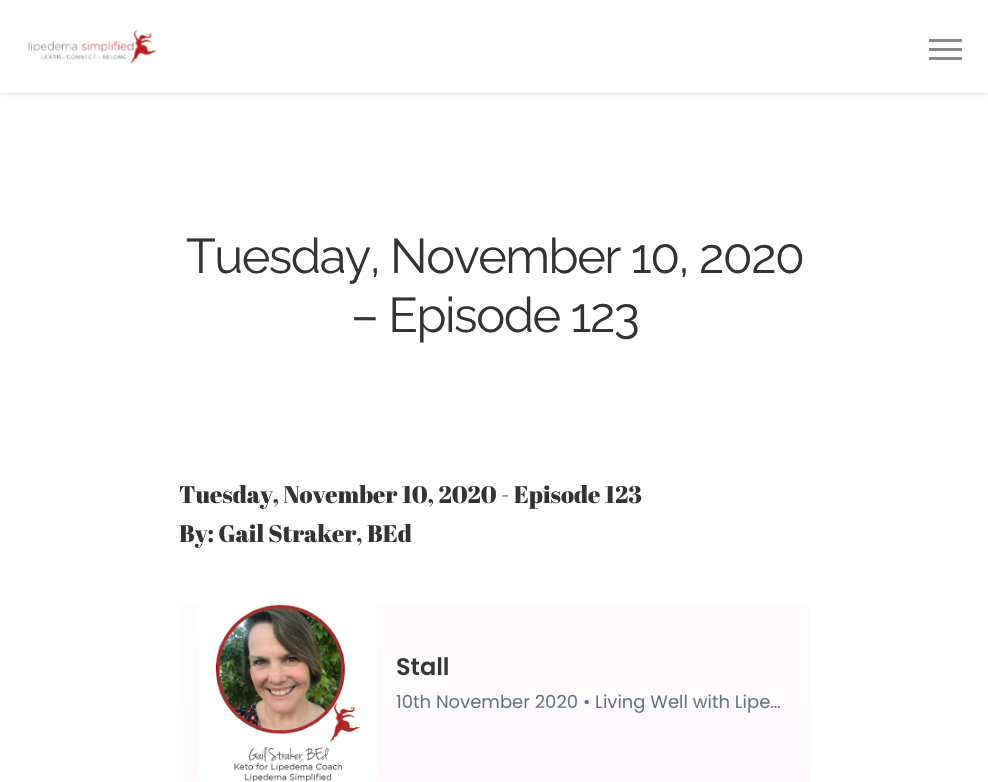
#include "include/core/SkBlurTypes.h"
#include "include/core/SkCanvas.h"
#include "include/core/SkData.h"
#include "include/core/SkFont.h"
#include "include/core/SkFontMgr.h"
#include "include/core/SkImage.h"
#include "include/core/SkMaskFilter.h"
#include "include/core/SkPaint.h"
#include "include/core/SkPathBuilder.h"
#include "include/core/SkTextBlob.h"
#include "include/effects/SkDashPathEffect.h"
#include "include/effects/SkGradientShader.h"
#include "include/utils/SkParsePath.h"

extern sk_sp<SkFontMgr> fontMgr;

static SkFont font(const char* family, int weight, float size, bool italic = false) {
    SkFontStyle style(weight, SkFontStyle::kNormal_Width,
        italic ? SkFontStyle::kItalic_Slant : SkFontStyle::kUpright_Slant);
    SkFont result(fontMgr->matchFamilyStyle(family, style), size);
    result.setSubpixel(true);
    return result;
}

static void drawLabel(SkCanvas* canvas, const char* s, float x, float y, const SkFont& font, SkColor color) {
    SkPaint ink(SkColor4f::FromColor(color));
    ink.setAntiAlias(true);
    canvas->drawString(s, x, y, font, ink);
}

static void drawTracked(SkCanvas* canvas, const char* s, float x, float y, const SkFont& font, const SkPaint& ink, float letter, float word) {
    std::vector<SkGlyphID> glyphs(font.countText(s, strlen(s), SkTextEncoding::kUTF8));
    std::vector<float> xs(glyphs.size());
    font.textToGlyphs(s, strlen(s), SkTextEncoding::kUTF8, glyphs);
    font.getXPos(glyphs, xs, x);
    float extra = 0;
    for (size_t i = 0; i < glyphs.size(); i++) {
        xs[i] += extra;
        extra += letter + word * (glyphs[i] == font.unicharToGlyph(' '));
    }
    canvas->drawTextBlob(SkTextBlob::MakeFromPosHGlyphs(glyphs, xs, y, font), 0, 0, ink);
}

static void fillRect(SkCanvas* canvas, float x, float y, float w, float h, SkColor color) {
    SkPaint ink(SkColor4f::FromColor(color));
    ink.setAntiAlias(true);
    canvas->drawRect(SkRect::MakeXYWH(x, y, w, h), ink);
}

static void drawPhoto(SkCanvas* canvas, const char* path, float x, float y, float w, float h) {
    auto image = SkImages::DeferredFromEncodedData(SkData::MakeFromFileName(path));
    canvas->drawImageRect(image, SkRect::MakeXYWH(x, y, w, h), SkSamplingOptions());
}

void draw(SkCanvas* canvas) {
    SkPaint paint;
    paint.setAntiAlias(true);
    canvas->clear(0xFFFFFFFF);
    paint.setColor(0x38000000);
    paint.setMaskFilter(SkMaskFilter::MakeBlur(kNormal_SkBlurStyle, 2));
    canvas->drawRect(SkRect::MakeXYWH(0, 0, 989, 93), paint);
    paint.setMaskFilter(nullptr);
    fillRect(canvas, 0, 0, 988, 93, 0xFFFFFFFF);
    drawPhoto(canvas, "assets/img1.png", 28, 29, 129, 35);
    fillRect(canvas, 929, 39, 33, 3, 0xFF888888);
    fillRect(canvas, 929, 57, 33, 3, 0xFF888888);
    fillRect(canvas, 929, 48, 33, 3, 0xFF888888);
    SkFont font1 = font("Raleway", 400, 48.75f);
    paint.setColor(0xFF333333);
    drawTracked(canvas, "Tuesday, November 10, 2020", 186, 273, font1, paint, -1.5f, 0);
    drawTracked(canvas, "– Episode 123", 351, 332, font1, paint, -1.5f, 0);
    SkFont font2 = font("Abril Fatface", 400, 24);
    drawLabel(canvas, "Tuesday, November 10, 2020 - Episode 123", 179, 503, font2, 0xFF333333);
    drawLabel(canvas, "By: Gail Straker, BEd", 179, 542, font2, 0xFF333333);
    drawPhoto(canvas, "assets/img2.png", 180, 604, 630, 178);
}
